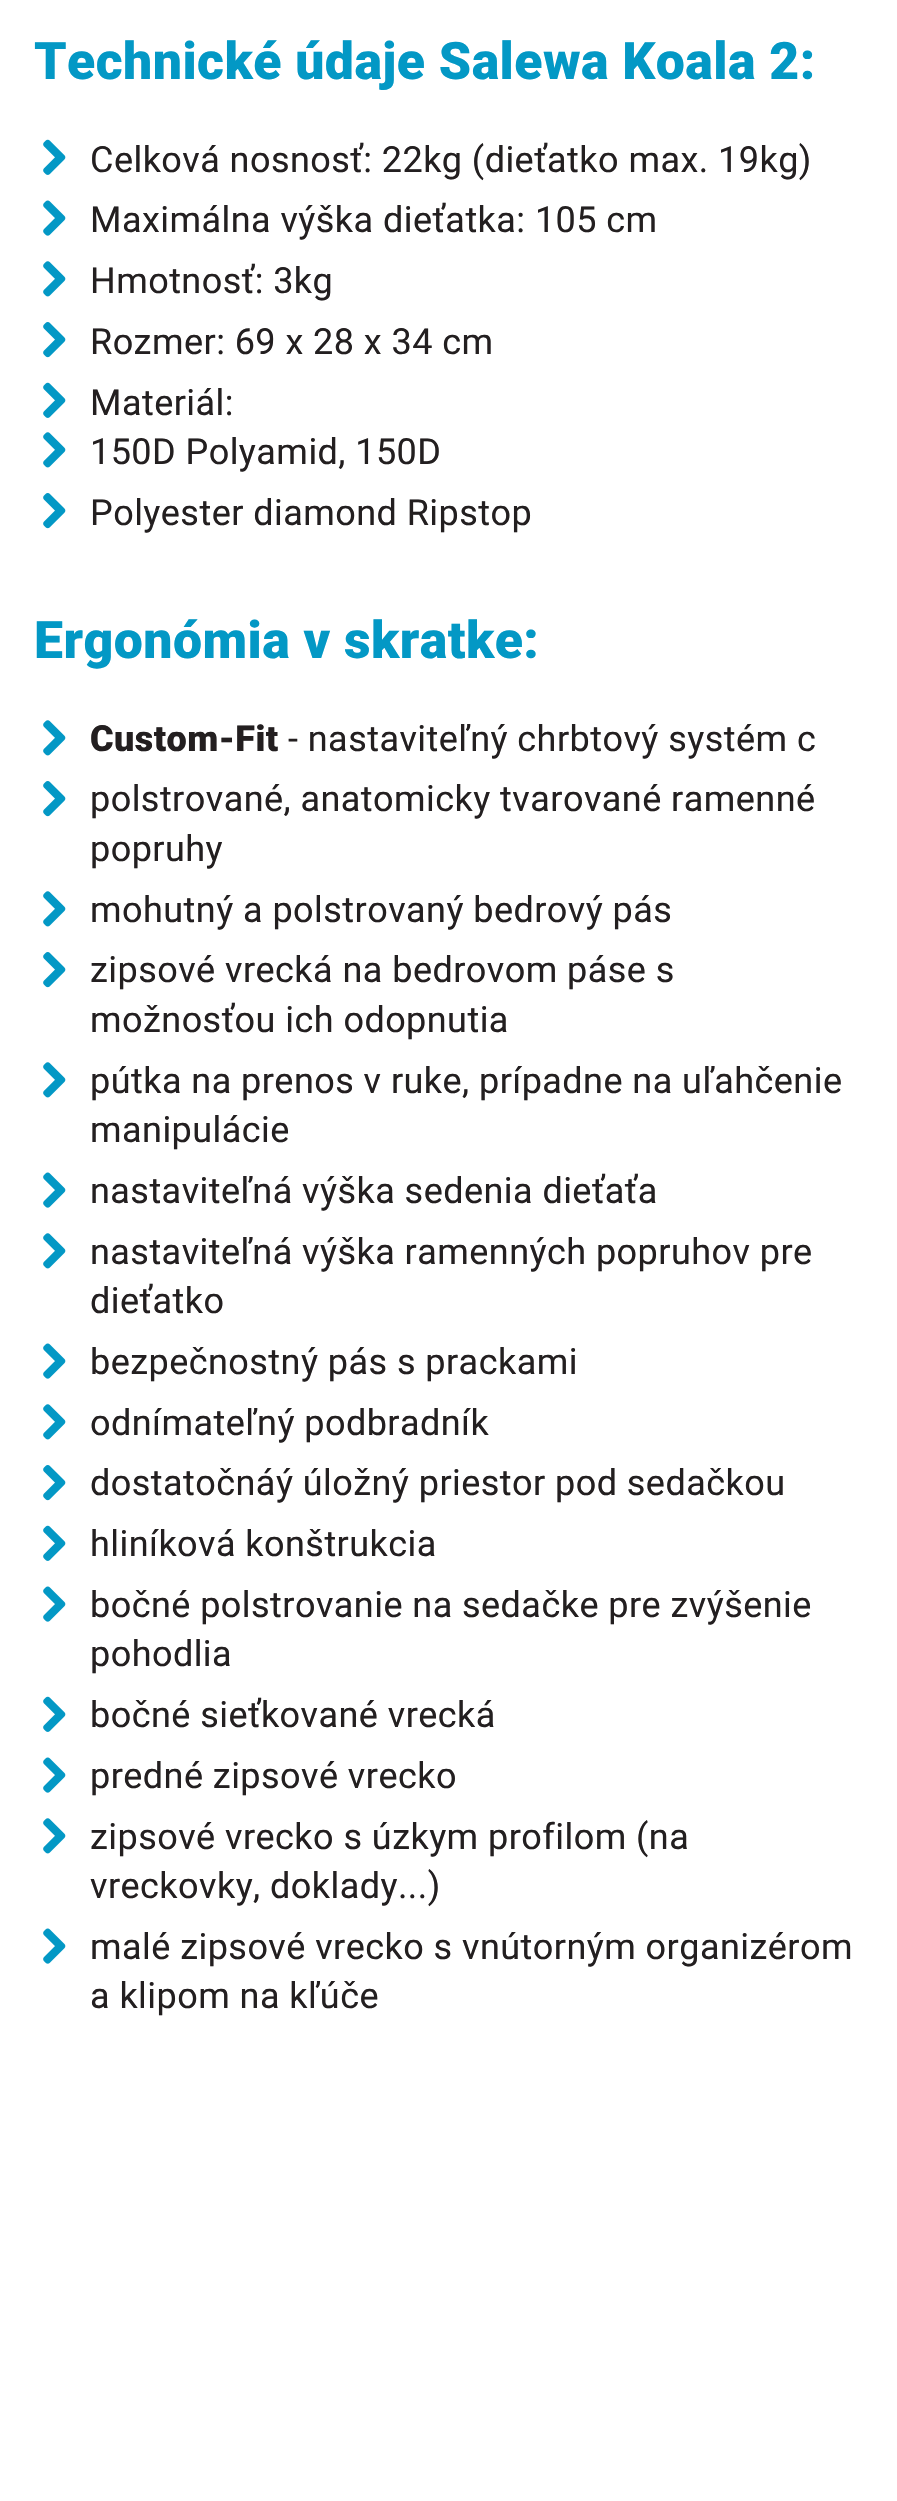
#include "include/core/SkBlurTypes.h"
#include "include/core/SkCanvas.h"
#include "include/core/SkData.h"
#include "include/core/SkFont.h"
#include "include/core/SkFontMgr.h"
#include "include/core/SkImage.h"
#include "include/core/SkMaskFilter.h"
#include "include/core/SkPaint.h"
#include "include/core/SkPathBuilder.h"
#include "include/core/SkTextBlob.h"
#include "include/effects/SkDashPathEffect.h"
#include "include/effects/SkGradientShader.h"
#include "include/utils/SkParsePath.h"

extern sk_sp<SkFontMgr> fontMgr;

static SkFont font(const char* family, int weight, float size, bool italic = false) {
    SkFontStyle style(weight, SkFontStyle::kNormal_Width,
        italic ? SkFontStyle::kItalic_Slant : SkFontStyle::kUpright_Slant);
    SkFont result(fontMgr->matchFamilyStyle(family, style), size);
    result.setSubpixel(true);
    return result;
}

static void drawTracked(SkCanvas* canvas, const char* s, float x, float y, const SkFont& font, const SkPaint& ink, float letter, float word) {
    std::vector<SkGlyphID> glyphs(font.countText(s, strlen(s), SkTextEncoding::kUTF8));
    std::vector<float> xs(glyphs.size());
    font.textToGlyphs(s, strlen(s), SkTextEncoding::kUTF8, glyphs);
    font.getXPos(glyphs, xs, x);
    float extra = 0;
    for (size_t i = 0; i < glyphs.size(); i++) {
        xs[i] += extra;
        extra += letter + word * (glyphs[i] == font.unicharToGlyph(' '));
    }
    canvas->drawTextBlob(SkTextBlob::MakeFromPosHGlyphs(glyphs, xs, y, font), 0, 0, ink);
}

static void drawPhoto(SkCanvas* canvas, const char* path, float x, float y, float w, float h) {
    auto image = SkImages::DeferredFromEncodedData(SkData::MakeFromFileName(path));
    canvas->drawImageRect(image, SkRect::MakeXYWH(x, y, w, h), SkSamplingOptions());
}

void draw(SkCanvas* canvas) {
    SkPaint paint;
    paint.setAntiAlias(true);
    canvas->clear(0xFFFFFFFF);
    SkFont font1 = font("Roboto", 900, 51.75f);
    paint.setColor(0xFF0398C5);
    drawTracked(canvas, "Technické údaje Salewa Koala 2:", 34, 79, font1, paint, 0.45f, 0);
    drawPhoto(canvas, "assets/img1.png", 43, 139, 23, 36);
    SkFont font2 = font("Roboto", 400, 36);
    paint.setColor(0xFF231F20);
    drawTracked(canvas, "Celková nosnosť: 22kg (dieťatko max. 19kg)", 90, 172, font2, paint, 0.45f, 0);
    drawPhoto(canvas, "assets/img2.png", 43, 200, 23, 36);
    drawTracked(canvas, "Maximálna výška dieťatka: 105 cm", 90, 232, font2, paint, 0.45f, 0);
    drawPhoto(canvas, "assets/img3.png", 43, 261, 23, 36);
    drawTracked(canvas, "Hmotnosť: 3kg", 90, 293, font2, paint, 0.45f, 0);
    drawPhoto(canvas, "assets/img4.png", 43, 322, 23, 36);
    drawTracked(canvas, "Rozmer: 69 x 28 x 34 cm", 90, 354, font2, paint, 0.45f, 0);
    drawPhoto(canvas, "assets/img1.png", 43, 382, 23, 36);
    drawTracked(canvas, "Materiál:", 90, 415, font2, paint, 0.45f, 0);
    drawPhoto(canvas, "assets/img3.png", 43, 432, 23, 36);
    drawTracked(canvas, "150D Polyamid, 150D", 90, 464, font2, paint, 0.45f, 0);
    drawPhoto(canvas, "assets/img4.png", 43, 493, 23, 36);
    drawTracked(canvas, "Polyester diamond Ripstop", 90, 525, font2, paint, 0.45f, 0);
    paint.setColor(0xFF0398C5);
    drawTracked(canvas, "Ergonómia v skratke:", 34, 658, font1, paint, 0.45f, 0);
    drawPhoto(canvas, "assets/img3.png", 43, 720, 23, 36);
    SkFont font3 = font("Roboto", 900, 36);
    paint.setColor(0xFF231F20);
    drawTracked(canvas, "Custom-Fit", 90, 751, font3, paint, 0.45f, 0);
    drawTracked(canvas, "- nastaviteľný chrbtový systém c", 288, 751, font2, paint, 0.45f, 0);
    drawPhoto(canvas, "assets/img4.png", 43, 781, 23, 36);
    drawTracked(canvas, "polstrované, anatomicky tvarované ramenné", 90, 811, font2, paint, 0.45f, 0);
    drawTracked(canvas, "popruhy", 90, 861, font2, paint, 0.45f, 0);
    drawPhoto(canvas, "assets/img3.png", 43, 891, 23, 36);
    drawTracked(canvas, "mohutný a polstrovaný bedrový pás", 90, 922, font2, paint, 0.45f, 0);
    drawPhoto(canvas, "assets/img4.png", 43, 952, 23, 36);
    drawTracked(canvas, "zipsové vrecká na bedrovom páse s", 90, 982, font2, paint, 0.45f, 0);
    drawTracked(canvas, "možnosťou ich odopnutia", 90, 1032, font2, paint, 0.45f, 0);
    drawPhoto(canvas, "assets/img3.png", 43, 1062, 23, 36);
    drawTracked(canvas, "pútka na prenos v ruke, prípadne na uľahčenie", 90, 1093, font2, paint, 0.45f, 0);
    drawTracked(canvas, "manipulácie", 90, 1142, font2, paint, 0.45f, 0);
    drawPhoto(canvas, "assets/img2.png", 43, 1172, 23, 36);
    drawTracked(canvas, "nastaviteľná výška sedenia dieťaťa", 90, 1203, font2, paint, 0.45f, 0);
    drawPhoto(canvas, "assets/img3.png", 43, 1233, 23, 36);
    drawTracked(canvas, "nastaviteľná výška ramenných popruhov pre", 90, 1264, font2, paint, 0.45f, 0);
    drawTracked(canvas, "dieťatko", 90, 1313, font2, paint, 0.45f, 0);
    drawPhoto(canvas, "assets/img2.png", 43, 1343, 23, 36);
    drawTracked(canvas, "bezpečnostný pás s prackami", 90, 1374, font2, paint, 0.45f, 0);
    drawPhoto(canvas, "assets/img3.png", 43, 1404, 23, 36);
    drawTracked(canvas, "odnímateľný podbradník", 90, 1435, font2, paint, 0.45f, 0);
    drawPhoto(canvas, "assets/img4.png", 43, 1465, 23, 36);
    drawTracked(canvas, "dostatočnáý úložný priestor pod sedačkou", 90, 1495, font2, paint, 0.45f, 0);
    drawPhoto(canvas, "assets/img1.png", 43, 1525, 23, 36);
    drawTracked(canvas, "hliníková konštrukcia", 90, 1556, font2, paint, 0.45f, 0);
    drawPhoto(canvas, "assets/img2.png", 43, 1586, 23, 36);
    drawTracked(canvas, "bočné polstrovanie na sedačke pre zvýšenie", 90, 1617, font2, paint, 0.45f, 0);
    drawTracked(canvas, "pohodlia", 90, 1666, font2, paint, 0.45f, 0);
    drawPhoto(canvas, "assets/img1.png", 43, 1696, 23, 36);
    drawTracked(canvas, "bočné sieťkované vrecká", 90, 1727, font2, paint, 0.45f, 0);
    drawPhoto(canvas, "assets/img2.png", 43, 1757, 23, 36);
    drawTracked(canvas, "predné zipsové vrecko", 90, 1788, font2, paint, 0.45f, 0);
    drawPhoto(canvas, "assets/img3.png", 43, 1818, 23, 36);
    drawTracked(canvas, "zipsové vrecko s úzkym profilom (na", 90, 1849, font2, paint, 0.45f, 0);
    drawTracked(canvas, "vreckovky, doklady...)", 90, 1898, font2, paint, 0.45f, 0);
    drawPhoto(canvas, "assets/img2.png", 43, 1928, 23, 36);
    drawTracked(canvas, "malé zipsové vrecko s vnútorným organizérom", 90, 1959, font2, paint, 0.45f, 0);
    drawTracked(canvas, "a klipom na kľúče", 90, 2008, font2, paint, 0.45f, 0);
}
